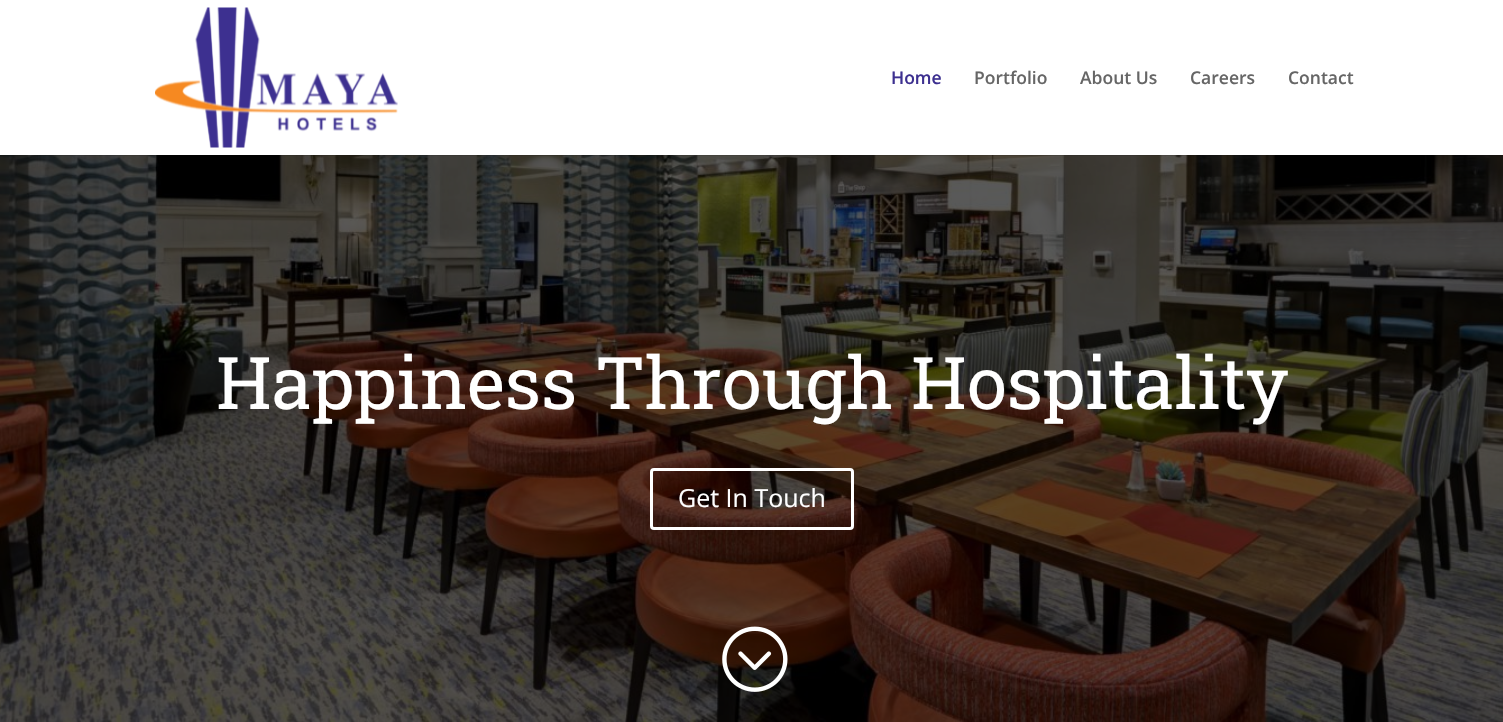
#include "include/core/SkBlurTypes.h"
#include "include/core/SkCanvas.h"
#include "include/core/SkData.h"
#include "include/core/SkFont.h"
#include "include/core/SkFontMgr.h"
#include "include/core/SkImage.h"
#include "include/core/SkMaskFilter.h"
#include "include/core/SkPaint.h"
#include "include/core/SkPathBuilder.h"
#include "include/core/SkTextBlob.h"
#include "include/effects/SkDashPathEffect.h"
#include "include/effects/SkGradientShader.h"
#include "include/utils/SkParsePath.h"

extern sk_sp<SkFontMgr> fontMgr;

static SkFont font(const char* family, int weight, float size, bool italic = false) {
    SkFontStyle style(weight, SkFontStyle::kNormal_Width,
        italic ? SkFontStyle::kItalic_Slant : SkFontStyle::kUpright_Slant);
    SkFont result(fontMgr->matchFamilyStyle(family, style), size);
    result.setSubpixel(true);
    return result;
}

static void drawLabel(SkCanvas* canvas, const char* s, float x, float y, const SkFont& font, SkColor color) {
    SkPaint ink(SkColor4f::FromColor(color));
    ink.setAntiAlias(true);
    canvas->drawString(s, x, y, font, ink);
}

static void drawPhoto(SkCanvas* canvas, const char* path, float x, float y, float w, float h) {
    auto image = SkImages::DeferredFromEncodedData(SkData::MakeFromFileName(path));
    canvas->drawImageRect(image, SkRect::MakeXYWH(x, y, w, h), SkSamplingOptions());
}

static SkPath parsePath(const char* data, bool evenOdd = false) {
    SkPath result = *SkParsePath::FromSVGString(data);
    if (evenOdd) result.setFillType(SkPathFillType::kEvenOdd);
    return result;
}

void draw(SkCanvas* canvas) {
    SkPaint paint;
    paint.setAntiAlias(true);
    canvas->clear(0xFFFFFFFF);
    drawPhoto(canvas, "assets/img2.png", 0, 155, 1503, 567);
    paint.setColor(0x1A000000);
    canvas->drawPath(parsePath("M0 155V156H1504V1V155Z"), paint);
    drawPhoto(canvas, "assets/img1.png", 155, 7, 243, 141);
    SkFont font1 = font("Open Sans", 600, 17.5f);
    drawLabel(canvas, "Home", 891, 84, font1, 0xFF3D3090);
    drawLabel(canvas, "Portfolio", 974, 84, font1, 0xFF666666);
    drawLabel(canvas, "About Us", 1080, 84, font1, 0xFF666666);
    drawLabel(canvas, "Careers", 1190, 84, font1, 0xFF666666);
    drawLabel(canvas, "Contact", 1288, 84, font1, 0xFF666666);
    SkFont font2 = font("Roboto Slab", 400, 72.5f);
    drawLabel(canvas, "Happiness Through Hospitality", 216, 409, font2, 0xFFFFFFFF);
    paint.setStroke(true);
    paint.setStrokeWidth(3);
    paint.setColor(0xFFFFFFFF);
    canvas->drawRoundRect(SkRect::MakeXYWH(651.5f, 469.5f, 201, 59), 2.5f, 2.5f, paint);
    SkFont font3 = font("Open Sans", 400, 25);
    drawLabel(canvas, "Get In Touch", 678, 507, font3, 0xFFFFFFFF);
    drawPhoto(canvas, "assets/img3.png", 722, 626, 66, 66);
}
